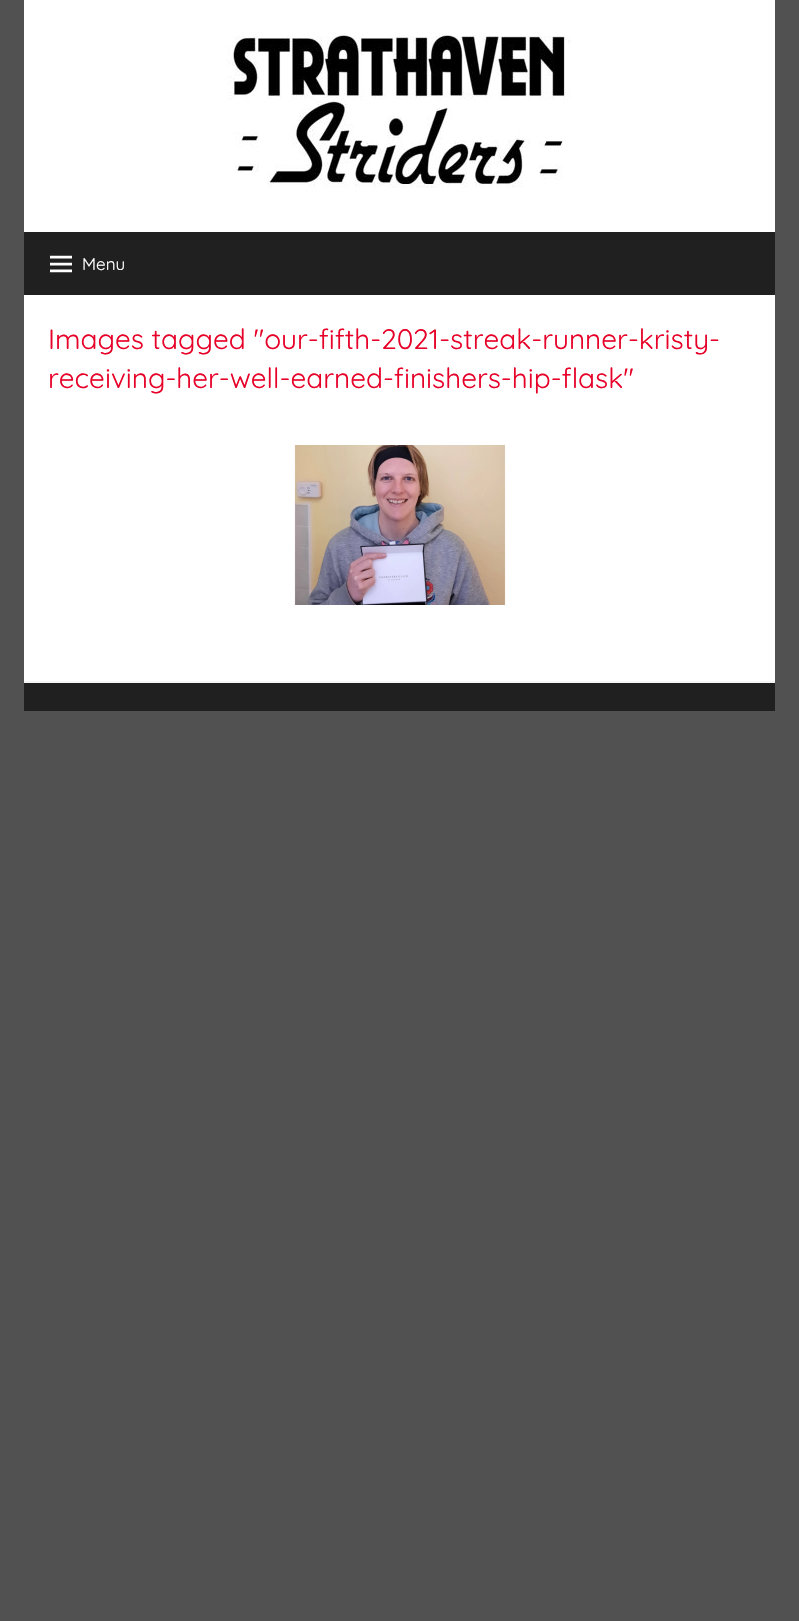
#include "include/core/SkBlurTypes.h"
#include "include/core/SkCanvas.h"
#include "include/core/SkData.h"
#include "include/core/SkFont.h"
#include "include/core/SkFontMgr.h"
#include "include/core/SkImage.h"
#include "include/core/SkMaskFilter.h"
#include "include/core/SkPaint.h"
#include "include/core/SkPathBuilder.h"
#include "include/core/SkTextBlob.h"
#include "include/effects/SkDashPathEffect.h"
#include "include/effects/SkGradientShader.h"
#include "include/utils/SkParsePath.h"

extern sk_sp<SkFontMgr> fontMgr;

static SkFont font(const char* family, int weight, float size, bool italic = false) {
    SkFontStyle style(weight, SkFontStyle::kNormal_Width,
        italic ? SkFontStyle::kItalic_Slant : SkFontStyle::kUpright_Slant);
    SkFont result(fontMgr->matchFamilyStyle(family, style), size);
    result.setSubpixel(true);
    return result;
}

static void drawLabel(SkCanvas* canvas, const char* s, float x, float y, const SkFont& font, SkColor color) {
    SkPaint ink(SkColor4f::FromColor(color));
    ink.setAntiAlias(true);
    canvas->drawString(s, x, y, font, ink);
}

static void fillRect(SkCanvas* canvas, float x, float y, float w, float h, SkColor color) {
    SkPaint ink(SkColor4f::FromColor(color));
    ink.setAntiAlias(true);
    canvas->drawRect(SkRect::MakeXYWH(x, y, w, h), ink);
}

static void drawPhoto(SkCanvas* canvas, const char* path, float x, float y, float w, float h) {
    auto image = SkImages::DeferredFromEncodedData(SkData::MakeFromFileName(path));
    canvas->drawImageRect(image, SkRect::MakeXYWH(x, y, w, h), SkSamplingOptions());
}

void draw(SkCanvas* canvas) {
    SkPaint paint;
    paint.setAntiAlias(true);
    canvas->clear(0xFF515151);
    fillRect(canvas, 24, 0, 751, 232, 0xFFFFFFFF);
    drawPhoto(canvas, "assets/img1.png", 227, 34, 344, 154);
    fillRect(canvas, 24, 232, 751, 63, 0xFF202020);
    drawPhoto(canvas, "assets/img2.png", 50, 255, 22, 18);
    SkFont font1 = font("Quicksand", 400, 17);
    drawLabel(canvas, "Menu", 82, 270, font1, 0xFFFFFFFF);
    fillRect(canvas, 24, 295, 751, 386, 0xFFFFFFFF);
    fillRect(canvas, 24, 681, 751, 2, 0xFFF5F5F5);
    SkFont font2 = font("Quicksand", 400, 28);
    drawLabel(canvas, "Images tagged \"our-fifth-2021-streak-runner-kristy-", 48, 349, font2, 0xFFE70128);
    drawLabel(canvas, "receiving-her-well-earned-finishers-hip-flask\"", 48, 388, font2, 0xFFE70128);
    drawPhoto(canvas, "assets/img3.png", 294, 445, 212, 160);
    fillRect(canvas, 24, 683, 751, 28, 0xFF202020);
}
